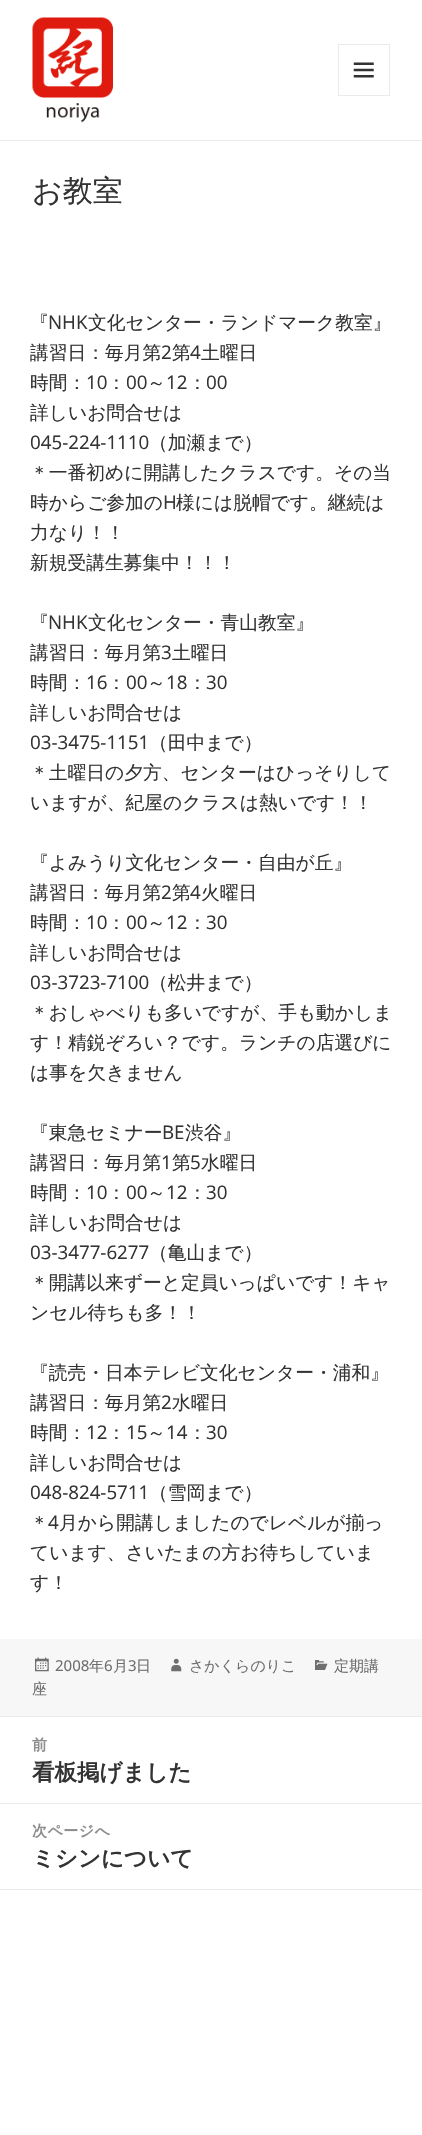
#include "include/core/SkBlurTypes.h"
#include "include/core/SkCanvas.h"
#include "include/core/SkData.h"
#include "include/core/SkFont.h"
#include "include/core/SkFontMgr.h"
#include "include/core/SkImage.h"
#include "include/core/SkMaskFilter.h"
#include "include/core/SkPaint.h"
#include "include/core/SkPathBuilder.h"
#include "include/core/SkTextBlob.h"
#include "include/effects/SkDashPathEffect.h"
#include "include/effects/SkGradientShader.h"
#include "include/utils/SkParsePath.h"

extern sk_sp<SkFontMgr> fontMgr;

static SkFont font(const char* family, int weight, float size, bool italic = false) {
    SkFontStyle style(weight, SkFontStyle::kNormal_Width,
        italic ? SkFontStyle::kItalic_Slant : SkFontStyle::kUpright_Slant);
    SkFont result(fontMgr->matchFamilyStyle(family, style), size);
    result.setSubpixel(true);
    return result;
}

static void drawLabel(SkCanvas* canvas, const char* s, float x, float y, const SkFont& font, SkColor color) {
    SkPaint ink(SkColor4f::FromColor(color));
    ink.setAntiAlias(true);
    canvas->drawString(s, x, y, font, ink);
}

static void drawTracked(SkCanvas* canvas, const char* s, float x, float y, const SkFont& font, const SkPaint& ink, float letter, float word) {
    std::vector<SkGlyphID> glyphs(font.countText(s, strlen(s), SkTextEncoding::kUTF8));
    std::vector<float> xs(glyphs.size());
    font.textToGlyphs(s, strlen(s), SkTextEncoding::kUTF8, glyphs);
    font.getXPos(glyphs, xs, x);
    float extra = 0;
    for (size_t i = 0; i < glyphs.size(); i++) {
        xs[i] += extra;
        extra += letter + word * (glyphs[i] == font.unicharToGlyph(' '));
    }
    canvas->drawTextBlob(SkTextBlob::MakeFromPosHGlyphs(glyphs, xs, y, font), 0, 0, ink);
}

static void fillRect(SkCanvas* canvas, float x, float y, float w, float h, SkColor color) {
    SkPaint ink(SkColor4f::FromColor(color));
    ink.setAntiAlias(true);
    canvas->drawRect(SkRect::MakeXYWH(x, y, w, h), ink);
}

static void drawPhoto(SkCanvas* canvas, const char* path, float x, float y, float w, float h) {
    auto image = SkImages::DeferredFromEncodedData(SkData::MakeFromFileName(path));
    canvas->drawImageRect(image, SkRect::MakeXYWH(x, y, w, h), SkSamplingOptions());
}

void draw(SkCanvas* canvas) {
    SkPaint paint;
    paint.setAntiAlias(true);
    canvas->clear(0xFFFFFFFF);
    fillRect(canvas, 0, 140, 422, 1, 0xFFEBEBEB);
    drawPhoto(canvas, "assets/img1.png", 32, 17, 81, 106);
    paint.setStroke(true);
    paint.setStrokeWidth(1);
    paint.setColor(0xFFEBEBEB);
    canvas->drawRect(SkRect::MakeXYWH(338.5f, 44.5f, 51, 51), paint);
    drawPhoto(canvas, "assets/img2.png", 353, 62, 21, 16);
    SkFont font1 = font("WenQuanYi Zen Hei", 500, 30);
    drawLabel(canvas, "お教室", 32, 201, font1, 0xFF333333);
    SkFont font2 = font("WenQuanYi Zen Hei", 500, 18.75f);
    drawLabel(canvas, "『", 30, 329, font2, 0xFF333333);
    SkFont font3 = font("Open Sans", 400, 18.75f);
    drawLabel(canvas, "NHK", 48, 329, font3, 0xFF333333);
    drawLabel(canvas, "文化センター・ランドマーク教室』", 88, 329, font2, 0xFF333333);
    drawLabel(canvas, "講習日：毎月第", 30, 359, font2, 0xFF333333);
    drawLabel(canvas, "2", 161, 359, font3, 0xFF333333);
    drawLabel(canvas, "第", 172, 359, font2, 0xFF333333);
    drawLabel(canvas, "4", 190, 359, font3, 0xFF333333);
    drawLabel(canvas, "土曜日", 201, 359, font2, 0xFF333333);
    drawLabel(canvas, "時間：", 30, 389, font2, 0xFF333333);
    drawLabel(canvas, "10", 86, 389, font3, 0xFF333333);
    drawLabel(canvas, "：", 107, 389, font2, 0xFF333333);
    drawLabel(canvas, "00", 126, 389, font3, 0xFF333333);
    drawLabel(canvas, "～", 147, 389, font2, 0xFF333333);
    drawLabel(canvas, "12", 166, 389, font3, 0xFF333333);
    drawLabel(canvas, "：", 188, 389, font2, 0xFF333333);
    drawLabel(canvas, "00", 206, 389, font3, 0xFF333333);
    drawLabel(canvas, "詳しいお問合せは", 30, 419, font2, 0xFF333333);
    drawLabel(canvas, "045-224-1110", 30, 449, font3, 0xFF333333);
    drawLabel(canvas, "（加瀬まで）", 149, 449, font2, 0xFF333333);
    drawLabel(canvas, "＊一番初めに開講したクラスです。その当", 30, 479, font2, 0xFF333333);
    drawLabel(canvas, "時からご参加の", 30, 509, font2, 0xFF333333);
    drawLabel(canvas, "H", 163, 509, font3, 0xFF333333);
    drawLabel(canvas, "様には脱帽です。継続は", 176, 509, font2, 0xFF333333);
    drawLabel(canvas, "力なり！！", 30, 539, font2, 0xFF333333);
    drawLabel(canvas, "新規受講生募集中！！！", 30, 569, font2, 0xFF333333);
    drawLabel(canvas, "『", 30, 629, font2, 0xFF333333);
    drawLabel(canvas, "NHK", 48, 629, font3, 0xFF333333);
    drawLabel(canvas, "文化センター・青山教室』", 88, 629, font2, 0xFF333333);
    drawLabel(canvas, "講習日：毎月第", 30, 659, font2, 0xFF333333);
    drawLabel(canvas, "3", 161, 659, font3, 0xFF333333);
    drawLabel(canvas, "土曜日", 172, 659, font2, 0xFF333333);
    drawLabel(canvas, "時間：", 30, 689, font2, 0xFF333333);
    drawLabel(canvas, "16", 86, 689, font3, 0xFF333333);
    drawLabel(canvas, "：", 107, 689, font2, 0xFF333333);
    drawLabel(canvas, "00", 126, 689, font3, 0xFF333333);
    drawLabel(canvas, "～", 147, 689, font2, 0xFF333333);
    drawLabel(canvas, "18", 166, 689, font3, 0xFF333333);
    drawLabel(canvas, "：", 188, 689, font2, 0xFF333333);
    drawLabel(canvas, "30", 206, 689, font3, 0xFF333333);
    drawLabel(canvas, "詳しいお問合せは", 30, 719, font2, 0xFF333333);
    drawLabel(canvas, "03-3475-1151", 30, 749, font3, 0xFF333333);
    drawLabel(canvas, "（田中まで）", 149, 749, font2, 0xFF333333);
    drawLabel(canvas, "＊土曜日の夕方、センターはひっそりして", 30, 779, font2, 0xFF333333);
    drawLabel(canvas, "いますが、紀屋のクラスは熱いです！！", 30, 809, font2, 0xFF333333);
    drawLabel(canvas, "『よみうり文化センター・自由が丘』", 30, 869, font2, 0xFF333333);
    drawLabel(canvas, "講習日：毎月第", 30, 899, font2, 0xFF333333);
    drawLabel(canvas, "2", 161, 899, font3, 0xFF333333);
    drawLabel(canvas, "第", 172, 899, font2, 0xFF333333);
    drawLabel(canvas, "4", 190, 899, font3, 0xFF333333);
    drawLabel(canvas, "火曜日", 201, 899, font2, 0xFF333333);
    drawLabel(canvas, "時間：", 30, 929, font2, 0xFF333333);
    drawLabel(canvas, "10", 86, 929, font3, 0xFF333333);
    drawLabel(canvas, "：", 107, 929, font2, 0xFF333333);
    drawLabel(canvas, "00", 126, 929, font3, 0xFF333333);
    drawLabel(canvas, "～", 147, 929, font2, 0xFF333333);
    drawLabel(canvas, "12", 166, 929, font3, 0xFF333333);
    drawLabel(canvas, "：", 188, 929, font2, 0xFF333333);
    drawLabel(canvas, "30", 206, 929, font3, 0xFF333333);
    drawLabel(canvas, "詳しいお問合せは", 30, 959, font2, 0xFF333333);
    drawLabel(canvas, "03-3723-7100", 30, 989, font3, 0xFF333333);
    drawLabel(canvas, "（松井まで）", 149, 989, font2, 0xFF333333);
    drawLabel(canvas, "＊おしゃべりも多いですが、手も動かしま", 30, 1019, font2, 0xFF333333);
    drawLabel(canvas, "す！精鋭ぞろい？です。ランチの店選びに", 30, 1049, font2, 0xFF333333);
    drawLabel(canvas, "は事を欠きません", 30, 1079, font2, 0xFF333333);
    drawLabel(canvas, "『東急セミナー", 30, 1139, font2, 0xFF333333);
    drawLabel(canvas, "BE", 162, 1139, font3, 0xFF333333);
    drawLabel(canvas, "渋谷』", 185, 1139, font2, 0xFF333333);
    drawLabel(canvas, "講習日：毎月第", 30, 1169, font2, 0xFF333333);
    drawLabel(canvas, "1", 161, 1169, font3, 0xFF333333);
    drawLabel(canvas, "第", 172, 1169, font2, 0xFF333333);
    drawLabel(canvas, "5", 190, 1169, font3, 0xFF333333);
    drawLabel(canvas, "水曜日", 201, 1169, font2, 0xFF333333);
    drawLabel(canvas, "時間：", 30, 1199, font2, 0xFF333333);
    drawLabel(canvas, "10", 86, 1199, font3, 0xFF333333);
    drawLabel(canvas, "：", 107, 1199, font2, 0xFF333333);
    drawLabel(canvas, "00", 126, 1199, font3, 0xFF333333);
    drawLabel(canvas, "～", 147, 1199, font2, 0xFF333333);
    drawLabel(canvas, "12", 166, 1199, font3, 0xFF333333);
    drawLabel(canvas, "：", 188, 1199, font2, 0xFF333333);
    drawLabel(canvas, "30", 206, 1199, font3, 0xFF333333);
    drawLabel(canvas, "詳しいお問合せは", 30, 1229, font2, 0xFF333333);
    drawLabel(canvas, "03-3477-6277", 30, 1259, font3, 0xFF333333);
    drawLabel(canvas, "（亀山まで）", 149, 1259, font2, 0xFF333333);
    drawLabel(canvas, "＊開講以来ずーと定員いっぱいです！キャ", 30, 1289, font2, 0xFF333333);
    drawLabel(canvas, "ンセル待ちも多！！", 30, 1319, font2, 0xFF333333);
    drawLabel(canvas, "『読売・日本テレビ文化センター・浦和』", 30, 1379, font2, 0xFF333333);
    drawLabel(canvas, "講習日：毎月第", 30, 1409, font2, 0xFF333333);
    drawLabel(canvas, "2", 161, 1409, font3, 0xFF333333);
    drawLabel(canvas, "水曜日", 172, 1409, font2, 0xFF333333);
    drawLabel(canvas, "時間：", 30, 1439, font2, 0xFF333333);
    drawLabel(canvas, "12", 86, 1439, font3, 0xFF333333);
    drawLabel(canvas, "：", 107, 1439, font2, 0xFF333333);
    drawLabel(canvas, "15", 126, 1439, font3, 0xFF333333);
    drawLabel(canvas, "～", 147, 1439, font2, 0xFF333333);
    drawLabel(canvas, "14", 166, 1439, font3, 0xFF333333);
    drawLabel(canvas, "：", 188, 1439, font2, 0xFF333333);
    drawLabel(canvas, "30", 206, 1439, font3, 0xFF333333);
    drawLabel(canvas, "詳しいお問合せは", 30, 1469, font2, 0xFF333333);
    drawLabel(canvas, "048-824-5711", 30, 1499, font3, 0xFF333333);
    drawLabel(canvas, "（雪岡まで）", 149, 1499, font2, 0xFF333333);
    drawLabel(canvas, "＊", 30, 1529, font2, 0xFF333333);
    drawLabel(canvas, "4", 48, 1529, font3, 0xFF333333);
    drawLabel(canvas, "月から開講しましたのでレベルが揃っ", 59, 1529, font2, 0xFF333333);
    drawLabel(canvas, "ています、さいたまの方お待ちしていま", 30, 1559, font2, 0xFF333333);
    drawLabel(canvas, "す！", 30, 1589, font2, 0xFF333333);
    fillRect(canvas, 0, 1639, 422, 77, 0xFFF7F7F7);
    drawPhoto(canvas, "assets/img3.png", 315, 1660, 13, 10);
    SkFont font4 = font("WenQuanYi Zen Hei", 500, 15);
    drawLabel(canvas, "定期講", 334, 1671, font4, 0xFF6E6E6E);
    drawLabel(canvas, "座", 32, 1694, font4, 0xFF6E6E6E);
    drawPhoto(canvas, "assets/img4.png", 35, 1657, 14, 15);
    SkFont font5 = font("Noto Sans", 400, 15);
    drawLabel(canvas, "2008", 55, 1671, font5, 0xFF6E6E6E);
    drawLabel(canvas, "年", 89, 1671, font4, 0xFF6E6E6E);
    drawLabel(canvas, "6", 104, 1671, font5, 0xFF6E6E6E);
    drawLabel(canvas, "月", 113, 1671, font4, 0xFF6E6E6E);
    drawLabel(canvas, "3", 128, 1671, font5, 0xFF6E6E6E);
    drawLabel(canvas, "日", 136, 1671, font4, 0xFF6E6E6E);
    drawPhoto(canvas, "assets/img5.png", 171, 1658, 11, 14);
    drawLabel(canvas, "さかくらのりこ", 189, 1671, font4, 0xFF6E6E6E);
    fillRect(canvas, 0, 1716, 422, 1, 0xFFEBEBEB);
    SkFont font6 = font("WenQuanYi Zen Hei", 700, 15);
    paint.setStroke(false);
    paint.setColor(0xFF8D8D8D);
    drawTracked(canvas, "前", 32, 1750, font6, paint, 0.5f, 0);
    SkFont font7 = font("WenQuanYi Zen Hei", 700, 22.5f);
    drawLabel(canvas, "看板掲げました", 32, 1780, font7, 0xFF333333);
    fillRect(canvas, 0, 1803, 422, 1, 0xFFEBEBEB);
    drawTracked(canvas, "次ページへ", 32, 1836, font6, paint, 0.5f, 0);
    drawLabel(canvas, "ミシンについて", 32, 1866, font7, 0xFF333333);
    fillRect(canvas, 0, 1889, 422, 1, 0xFFEBEBEB);
}
